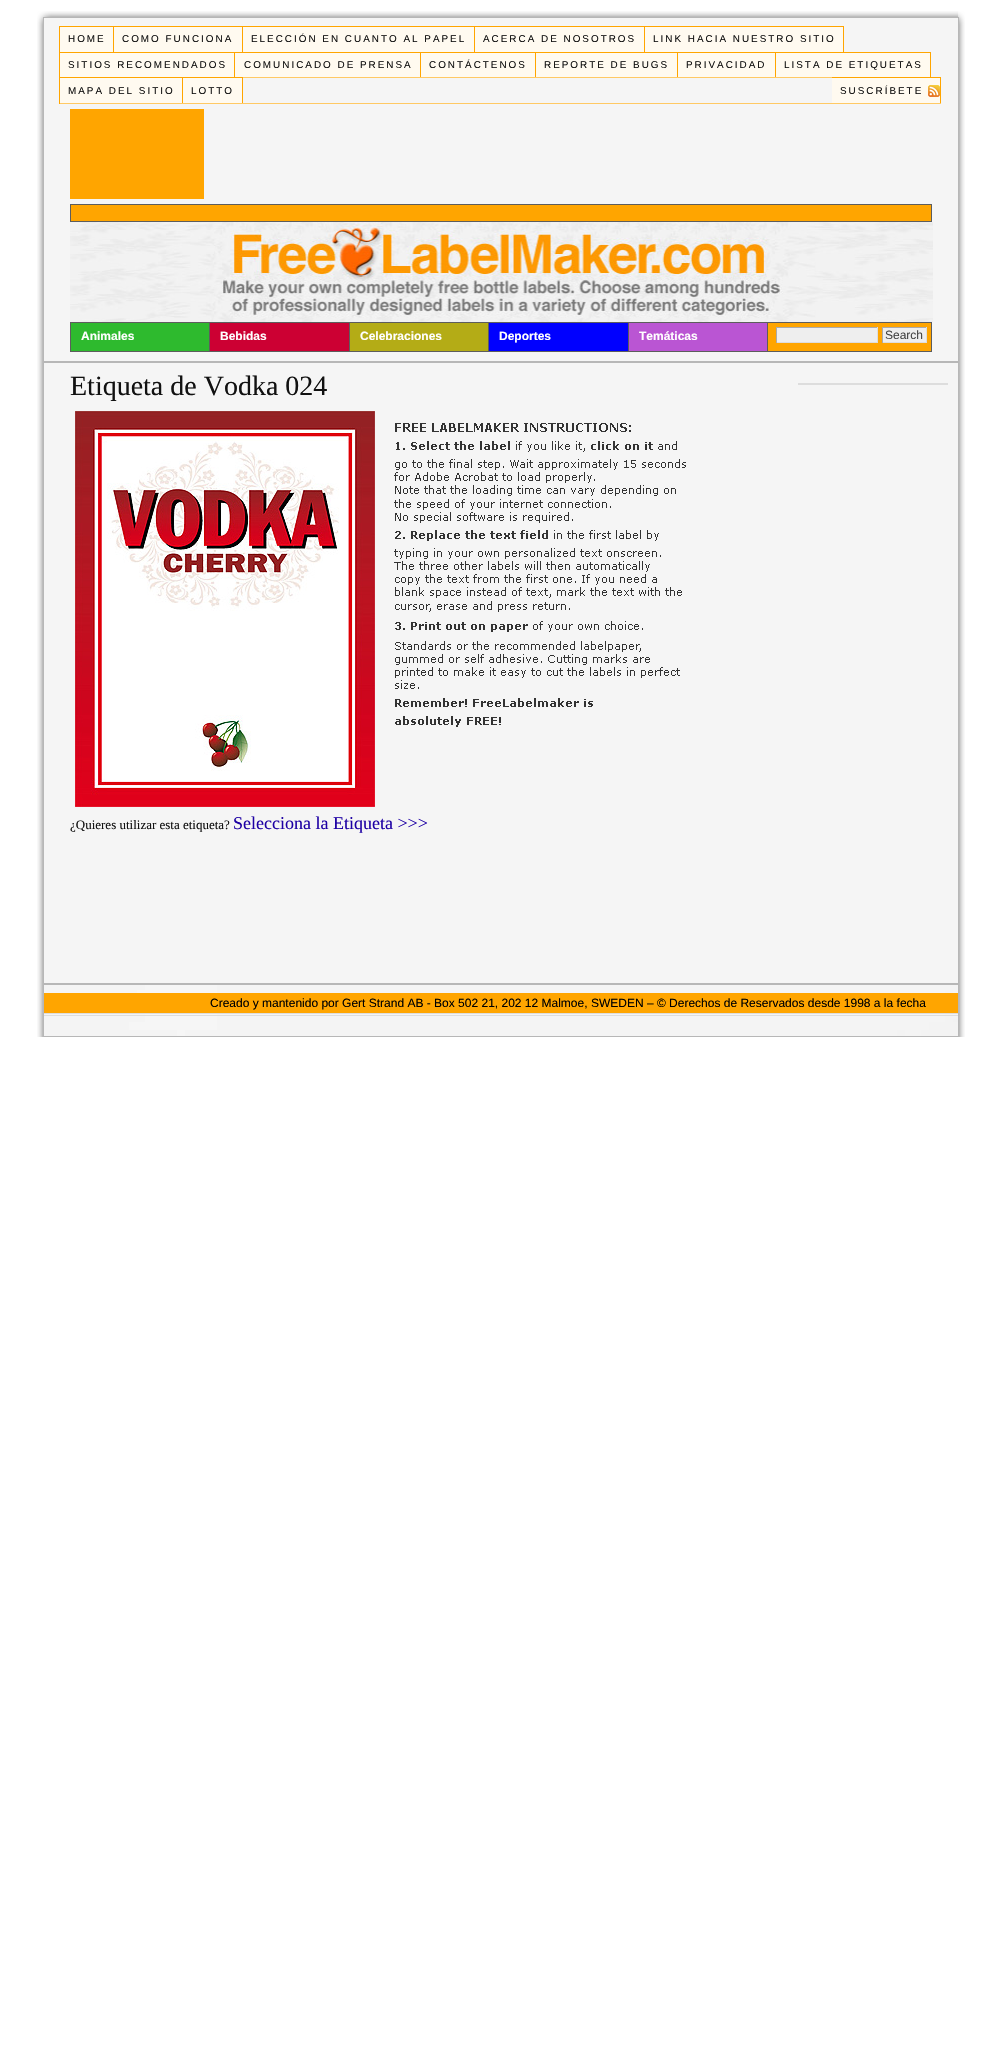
#include "include/core/SkBlurTypes.h"
#include "include/core/SkCanvas.h"
#include "include/core/SkData.h"
#include "include/core/SkFont.h"
#include "include/core/SkFontMgr.h"
#include "include/core/SkImage.h"
#include "include/core/SkMaskFilter.h"
#include "include/core/SkPaint.h"
#include "include/core/SkPathBuilder.h"
#include "include/core/SkTextBlob.h"
#include "include/effects/SkDashPathEffect.h"
#include "include/effects/SkGradientShader.h"
#include "include/utils/SkParsePath.h"

extern sk_sp<SkFontMgr> fontMgr;

static SkFont font(const char* family, int weight, float size, bool italic = false) {
    SkFontStyle style(weight, SkFontStyle::kNormal_Width,
        italic ? SkFontStyle::kItalic_Slant : SkFontStyle::kUpright_Slant);
    SkFont result(fontMgr->matchFamilyStyle(family, style), size);
    result.setSubpixel(true);
    return result;
}

static void drawLabel(SkCanvas* canvas, const char* s, float x, float y, const SkFont& font, SkColor color) {
    SkPaint ink(SkColor4f::FromColor(color));
    ink.setAntiAlias(true);
    canvas->drawString(s, x, y, font, ink);
}

static void drawTracked(SkCanvas* canvas, const char* s, float x, float y, const SkFont& font, const SkPaint& ink, float letter, float word) {
    std::vector<SkGlyphID> glyphs(font.countText(s, strlen(s), SkTextEncoding::kUTF8));
    std::vector<float> xs(glyphs.size());
    font.textToGlyphs(s, strlen(s), SkTextEncoding::kUTF8, glyphs);
    font.getXPos(glyphs, xs, x);
    float extra = 0;
    for (size_t i = 0; i < glyphs.size(); i++) {
        xs[i] += extra;
        extra += letter + word * (glyphs[i] == font.unicharToGlyph(' '));
    }
    canvas->drawTextBlob(SkTextBlob::MakeFromPosHGlyphs(glyphs, xs, y, font), 0, 0, ink);
}

static void fillRect(SkCanvas* canvas, float x, float y, float w, float h, SkColor color) {
    SkPaint ink(SkColor4f::FromColor(color));
    ink.setAntiAlias(true);
    canvas->drawRect(SkRect::MakeXYWH(x, y, w, h), ink);
}

static void drawPhoto(SkCanvas* canvas, const char* path, float x, float y, float w, float h) {
    auto image = SkImages::DeferredFromEncodedData(SkData::MakeFromFileName(path));
    canvas->drawImageRect(image, SkRect::MakeXYWH(x, y, w, h), SkSamplingOptions());
}

void draw(SkCanvas* canvas) {
    SkPaint paint;
    paint.setAntiAlias(true);
    canvas->clear(0xFFFFFFFF);
    drawPhoto(canvas, "assets/img1.png", 37, 11, 928, 1026);
    paint.setStroke(true);
    paint.setStrokeWidth(1);
    paint.setColor(0xFFB7B7B7);
    canvas->drawRect(SkRect::MakeXYWH(43.5f, 17.5f, 915, 344), paint);
    fillRect(canvas, 243, 103, 589, 1, 0xFFFFC964);
    fillRect(canvas, 59, 26, 1, 78, 0xFFFFA500);
    fillRect(canvas, 60, 27, 53, 25, 0xFFFFFAF0);
    fillRect(canvas, 60, 26, 784, 1, 0xFFFFA500);
    fillRect(canvas, 113, 26, 1, 27, 0xFFFFA500);
    SkFont font1 = font("Liberation Sans", 400, 9.9f);
    paint.setStroke(false);
    paint.setColor(0xFF111111);
    drawTracked(canvas, "HOME", 68, 42, font1, paint, 2, 0);
    fillRect(canvas, 114, 27, 128, 25, 0xFFFFFAF0);
    fillRect(canvas, 242, 26, 1, 27, 0xFFFFA500);
    drawTracked(canvas, "COMO FUNCIONA", 122, 42, font1, paint, 2, 0);
    fillRect(canvas, 243, 27, 231, 25, 0xFFFFFAF0);
    fillRect(canvas, 474, 26, 1, 27, 0xFFFFA500);
    drawTracked(canvas, "ELECCIÓN EN CUANTO AL PAPEL", 251, 42, font1, paint, 2, 0);
    fillRect(canvas, 475, 27, 169, 25, 0xFFFFFAF0);
    fillRect(canvas, 644, 26, 1, 27, 0xFFFFA500);
    drawTracked(canvas, "ACERCA DE NOSOTROS", 483, 42, font1, paint, 2, 0);
    fillRect(canvas, 645, 27, 198, 25, 0xFFFFFAF0);
    fillRect(canvas, 843, 26, 1, 27, 0xFFFFA500);
    drawTracked(canvas, "LINK HACIA NUESTRO SITIO", 653, 42, font1, paint, 2, 0);
    fillRect(canvas, 60, 53, 174, 24, 0xFFFFFAF0);
    fillRect(canvas, 60, 52, 871, 1, 0xFFFFA500);
    fillRect(canvas, 234, 52, 1, 26, 0xFFFFA500);
    drawTracked(canvas, "SITIOS RECOMENDADOS", 68, 68, font1, paint, 2, 0);
    fillRect(canvas, 235, 53, 185, 24, 0xFFFFFAF0);
    fillRect(canvas, 420, 52, 1, 26, 0xFFFFA500);
    fillRect(canvas, 235, 77, 186, 1, 0xFFFFC964);
    drawTracked(canvas, "COMUNICADO DE PRENSA", 244, 68, font1, paint, 2, 0);
    fillRect(canvas, 421, 53, 114, 24, 0xFFFFFAF0);
    fillRect(canvas, 535, 52, 1, 26, 0xFFFFA500);
    fillRect(canvas, 421, 77, 115, 1, 0xFFFFC964);
    drawTracked(canvas, "CONTÁCTENOS", 429, 68, font1, paint, 2, 0);
    fillRect(canvas, 536, 53, 141, 24, 0xFFFFFAF0);
    fillRect(canvas, 677, 52, 1, 26, 0xFFFFA500);
    fillRect(canvas, 536, 77, 142, 1, 0xFFFFC964);
    drawTracked(canvas, "REPORTE DE BUGS", 544, 68, font1, paint, 2, 0);
    fillRect(canvas, 678, 53, 97, 24, 0xFFFFFAF0);
    fillRect(canvas, 775, 52, 1, 26, 0xFFFFA500);
    fillRect(canvas, 678, 77, 154, 1, 0xFFFFC964);
    drawTracked(canvas, "PRIVACIDAD", 686, 68, font1, paint, 2, 0);
    fillRect(canvas, 776, 53, 154, 24, 0xFFFFFAF0);
    fillRect(canvas, 930, 52, 1, 26, 0xFFFFA500);
    drawTracked(canvas, "LISTA DE ETIQUETAS", 784, 68, font1, paint, 2, 0);
    fillRect(canvas, 60, 78, 122, 25, 0xFFFFFAF0);
    fillRect(canvas, 60, 77, 183, 1, 0xFFFFA500);
    fillRect(canvas, 182, 77, 1, 27, 0xFFFFA500);
    fillRect(canvas, 60, 103, 123, 1, 0xFFFFC964);
    drawTracked(canvas, "MAPA DEL SITIO", 68, 94, font1, paint, 2, 0);
    fillRect(canvas, 183, 78, 59, 25, 0xFFFFFAF0);
    fillRect(canvas, 242, 77, 1, 27, 0xFFFFA500);
    fillRect(canvas, 183, 103, 60, 1, 0xFFFFC964);
    drawTracked(canvas, "LOTTO", 191, 94, font1, paint, 2, 0);
    fillRect(canvas, 832, 78, 108, 25, 0xFFFFFAF0);
    drawPhoto(canvas, "assets/img2.png", 928, 85, 12, 12);
    fillRect(canvas, 832, 77, 109, 1, 0xFFFFA500);
    fillRect(canvas, 940, 77, 1, 27, 0xFFFFA500);
    fillRect(canvas, 832, 103, 109, 1, 0xFFFFC964);
    drawTracked(canvas, "SUSCRÍBETE", 840, 94, font1, paint, 2, 0);
    fillRect(canvas, 70, 109, 134, 90, 0xFFFFA500);
    paint.setColor(0xFFFFA500);
    canvas->drawRect(SkRect::MakeXYWH(70.5f, 204.5f, 861, 17), paint);
    paint.setStroke(true);
    paint.setColor(0xFF5D5D5D);
    canvas->drawRect(SkRect::MakeXYWH(70.5f, 204.5f, 861, 17), paint);
    drawPhoto(canvas, "assets/img3.png", 70, 222, 863, 100);
    fillRect(canvas, 768, 323, 163, 28, 0xFFFFA500);
    canvas->drawRect(SkRect::MakeXYWH(70.5f, 322.5f, 861, 29), paint);
    fillRect(canvas, 71, 323, 138, 28, 0xFF2EBA2E);
    fillRect(canvas, 209, 323, 1, 28, 0xFF5D5D5D);
    SkFont font2 = font("Liberation Sans", 700, 12);
    drawLabel(canvas, "Animales", 81, 340, font2, 0xFFFFFFFF);
    fillRect(canvas, 210, 323, 139, 28, 0xFFCC0033);
    fillRect(canvas, 349, 323, 1, 28, 0xFF5D5D5D);
    drawLabel(canvas, "Bebidas", 220, 340, font2, 0xFFFFFFFF);
    fillRect(canvas, 350, 323, 138, 28, 0xFFB4AC16);
    fillRect(canvas, 488, 323, 1, 28, 0xFF5D5D5D);
    drawLabel(canvas, "Celebraciones", 360, 340, font2, 0xFFFFFFFF);
    fillRect(canvas, 489, 323, 139, 28, 0xFF0000FF);
    fillRect(canvas, 628, 323, 1, 28, 0xFF5D5D5D);
    drawLabel(canvas, "Deportes", 499, 340, font2, 0xFFFFFFFF);
    fillRect(canvas, 629, 323, 138, 28, 0xFFBA55D3);
    fillRect(canvas, 767, 323, 1, 28, 0xFF5D5D5D);
    drawLabel(canvas, "Temáticas", 639, 340, font2, 0xFFFFFFFF);
    fillRect(canvas, 777, 328, 100, 14, 0xFFEEEEEE);
    fillRect(canvas, 776, 327, 102, 1, 0xFFAAAAAA);
    fillRect(canvas, 877, 327, 1, 16, 0xFFDDDDDD);
    fillRect(canvas, 776, 342, 102, 1, 0xFFDDDDDD);
    fillRect(canvas, 776, 327, 1, 16, 0xFFAAAAAA);
    fillRect(canvas, 883, 328, 43, 14, 0xFFEEEEEE);
    fillRect(canvas, 882, 327, 45, 1, 0xFFAAAAAA);
    fillRect(canvas, 926, 327, 1, 16, 0xFFDDDDDD);
    fillRect(canvas, 882, 342, 45, 1, 0xFFDDDDDD);
    fillRect(canvas, 882, 327, 1, 16, 0xFFAAAAAA);
    SkFont font3 = font("Liberation Sans", 400, 12);
    drawLabel(canvas, "Search", 885, 339, font3, 0xFF444444);
    paint.setColor(0xFFB7B7B7);
    canvas->drawRect(SkRect::MakeXYWH(43.5f, 362.5f, 915, 621), paint);
    SkFont font4 = font("Liberation Serif", 400, 28);
    drawLabel(canvas, "Etiqueta de Vodka 024", 70, 395, font4, 0xFF111111);
    drawPhoto(canvas, "assets/img4.png", 394, 423, 292, 304);
    drawPhoto(canvas, "assets/img5.png", 75, 411, 300, 396);
    SkFont font5 = font("Liberation Serif", 400, 13);
    drawLabel(canvas, "¿Quieres utilizar esta etiqueta?", 70, 829, font5, 0xFF111111);
    SkFont font6 = font("Liberation Serif", 400, 18);
    drawLabel(canvas, "Selecciona la Etiqueta >>>", 233, 829, font6, 0xFF1D00A4);
    fillRect(canvas, 798, 383, 150, 2, 0xFFDDDDDD);
    drawPhoto(canvas, "assets/img6.png", 44, 985, 914, 51);
    canvas->drawRect(SkRect::MakeXYWH(43.5f, 984.5f, 915, 52), paint);
    fillRect(canvas, 44, 993, 914, 20, 0xFFFFA500);
    drawLabel(canvas, "Creado y mantenido por Gert Strand AB - Box 502 21, 202 12 Malmoe, SWEDEN – © Derechos de Reservados desde 1998 a la fecha", 210, 1007, font3, 0xFF000000);
    fillRect(canvas, 44, 1013, 914, 1, 0xFFDDDDDD);
    fillRect(canvas, 44, 1015, 914, 1, 0xFFDDDDDD);
}
